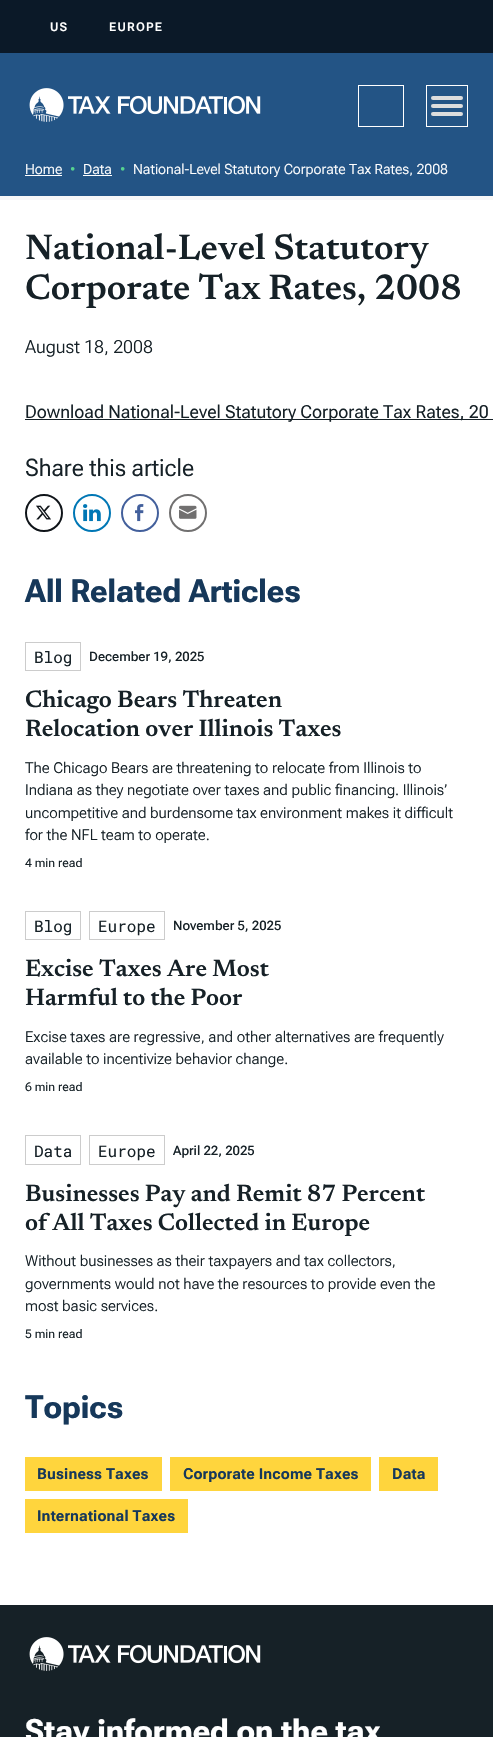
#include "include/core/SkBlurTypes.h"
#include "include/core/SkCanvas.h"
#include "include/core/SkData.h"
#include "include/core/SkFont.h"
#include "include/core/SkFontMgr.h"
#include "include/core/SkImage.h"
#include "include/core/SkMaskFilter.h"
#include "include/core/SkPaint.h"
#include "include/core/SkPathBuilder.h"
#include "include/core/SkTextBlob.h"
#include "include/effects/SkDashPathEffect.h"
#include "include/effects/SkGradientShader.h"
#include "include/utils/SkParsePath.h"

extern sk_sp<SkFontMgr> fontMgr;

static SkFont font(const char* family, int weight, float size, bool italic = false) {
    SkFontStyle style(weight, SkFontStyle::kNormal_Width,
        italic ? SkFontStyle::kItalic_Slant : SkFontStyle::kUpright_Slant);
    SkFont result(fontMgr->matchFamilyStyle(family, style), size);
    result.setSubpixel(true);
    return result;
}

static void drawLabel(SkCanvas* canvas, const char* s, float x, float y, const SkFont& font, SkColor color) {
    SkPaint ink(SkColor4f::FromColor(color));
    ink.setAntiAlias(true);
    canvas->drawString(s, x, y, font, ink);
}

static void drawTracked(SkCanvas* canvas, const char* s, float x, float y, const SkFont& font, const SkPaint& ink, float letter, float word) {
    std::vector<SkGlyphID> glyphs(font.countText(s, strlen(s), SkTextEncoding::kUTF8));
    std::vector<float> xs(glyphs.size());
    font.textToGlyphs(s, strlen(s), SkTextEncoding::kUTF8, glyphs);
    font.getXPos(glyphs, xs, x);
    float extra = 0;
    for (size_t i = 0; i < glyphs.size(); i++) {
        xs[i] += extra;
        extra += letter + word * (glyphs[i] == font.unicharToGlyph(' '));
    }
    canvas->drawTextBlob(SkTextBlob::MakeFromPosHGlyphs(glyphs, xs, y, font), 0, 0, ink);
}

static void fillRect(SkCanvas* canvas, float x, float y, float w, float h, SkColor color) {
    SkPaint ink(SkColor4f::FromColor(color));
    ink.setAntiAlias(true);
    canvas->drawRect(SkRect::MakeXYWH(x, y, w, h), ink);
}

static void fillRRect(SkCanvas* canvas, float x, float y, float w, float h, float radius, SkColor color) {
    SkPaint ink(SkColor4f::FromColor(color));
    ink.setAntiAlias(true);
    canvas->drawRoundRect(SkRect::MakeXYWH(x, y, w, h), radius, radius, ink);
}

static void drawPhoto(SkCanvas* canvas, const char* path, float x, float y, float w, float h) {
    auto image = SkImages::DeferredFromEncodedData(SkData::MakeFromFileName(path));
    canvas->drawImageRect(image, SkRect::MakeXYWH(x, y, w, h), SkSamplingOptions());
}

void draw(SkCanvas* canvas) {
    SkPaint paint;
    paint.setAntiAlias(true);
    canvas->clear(0xFFFFFFFF);
    fillRect(canvas, 0, 53, 493, 143, 0xFF235485);
    fillRect(canvas, 0, 0, 493, 53, 0xFF0B1928);
    SkFont font1 = font("Roboto Flex", 600, 12);
    paint.setColor(0xFFFFFFFF);
    drawTracked(canvas, "US", 50, 31, font1, paint, 1.25f, 0);
    drawTracked(canvas, "EUROPE", 109, 31, font1, paint, 1.25f, 0);
    drawPhoto(canvas, "assets/img1.png", 29, 88, 232, 34);
    paint.setStroke(true);
    paint.setStrokeWidth(1);
    canvas->drawRect(SkRect::MakeXYWH(358.5f, 85.5f, 45, 41), paint);
    canvas->drawRect(SkRect::MakeXYWH(426.5f, 85.5f, 41, 41), paint);
    fillRRect(canvas, 431, 96, 32, 4, 2, 0xFFDDDDDD);
    fillRRect(canvas, 431, 104, 32, 4, 2, 0xFFDDDDDD);
    fillRRect(canvas, 431, 112, 32, 4, 2, 0xFFDDDDDD);
    SkFont font2 = font("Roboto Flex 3", 300, 14);
    drawLabel(canvas, "Home", 25, 174, font2, 0xFFFFFFFF);
    fillRect(canvas, 25, 175, 37, 1, 0xFFFFFFFF);
    drawLabel(canvas, "•", 70, 174, font2, 0xFF55D390);
    drawLabel(canvas, "Data", 83, 174, font2, 0xFFFFFFFF);
    fillRect(canvas, 83, 175, 29, 1, 0xFFFFFFFF);
    drawLabel(canvas, "•", 120, 174, font2, 0xFF55D390);
    drawLabel(canvas, "National-Level Statutory Corporate Tax Rates, 2008", 133, 174, font2, 0xFFFFFFFF);
    fillRect(canvas, 0, 196, 493, 4, 0xFFF7F7F7);
    SkFont font3 = font("Newsreader", 600, 36);
    drawLabel(canvas, "National-Level Statutory", 25, 259, font3, 0xFF162127);
    drawLabel(canvas, "Corporate Tax Rates, 2008", 25, 299, font3, 0xFF162127);
    SkFont font4 = font("Roboto Flex", 300, 18);
    drawLabel(canvas, "August 18, 2008", 25, 353, font4, 0xFF162127);
    fillRect(canvas, 25, 419, 468, 1, 0xFF162127);
    SkFont font5 = font("Roboto Flex", 400, 18);
    drawLabel(canvas, "Download National-Level Statutory Corporate Tax Rates, 20", 25, 418, font5, 0xFF162127);
    SkFont font6 = font("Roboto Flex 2", 400, 24);
    drawLabel(canvas, "Share this article", 25, 476, font6, 0xFF162127);
    paint.setStrokeWidth(2);
    paint.setColor(0xFF0F1419);
    canvas->drawCircle(44, 513, 18, paint);
    drawPhoto(canvas, "assets/img2.png", 36, 505, 15, 15);
    paint.setColor(0xFF0077B5);
    canvas->drawCircle(92, 513, 18, paint);
    drawPhoto(canvas, "assets/img3.png", 83, 504, 18, 18);
    paint.setColor(0xFF43609C);
    canvas->drawCircle(140, 513, 18, paint);
    drawPhoto(canvas, "assets/img4.png", 135, 504, 9, 18);
    paint.setColor(0xFF717070);
    canvas->drawCircle(188, 513, 18, paint);
    drawPhoto(canvas, "assets/img5.png", 179, 505, 18, 14);
    SkFont font7 = font("Roboto Flex", 700, 32);
    drawLabel(canvas, "All Related Articles", 25, 602, font7, 0xFF16385A);
    paint.setStrokeWidth(1);
    paint.setColor(0xFFCCCCCC);
    canvas->drawRect(SkRect::MakeXYWH(25.5f, 642.5f, 55, 28), paint);
    SkFont font8 = font("Roboto Mono", 400, 16);
    drawLabel(canvas, "Blog", 34, 663, font8, 0xFF162127);
    SkFont font9 = font("Roboto Flex", 500, 13);
    drawLabel(canvas, "December 19, 2025", 89, 661, font9, 0xFF162127);
    SkFont font10 = font("Newsreader", 600, 24);
    drawLabel(canvas, "Chicago Bears Threaten", 25, 707, font10, 0xFF162127);
    drawLabel(canvas, "Relocation over Illinois Taxes", 25, 736, font10, 0xFF162127);
    SkFont font11 = font("Roboto Flex 2", 300, 15);
    drawLabel(canvas, "The Chicago Bears are threatening to relocate from Illinois to", 25, 773, font11, 0xFF162127);
    drawLabel(canvas, "Indiana as they negotiate over taxes and public financing. Illinois’", 25, 795, font11, 0xFF162127);
    drawLabel(canvas, "uncompetitive and burdensome tax environment makes it difficult", 25, 818, font11, 0xFF162127);
    drawLabel(canvas, "for the NFL team to operate.", 25, 840, font11, 0xFF162127);
    SkFont font12 = font("Roboto Flex 3", 400, 12);
    drawLabel(canvas, "4 min read", 25, 867, font12, 0xFF162127);
    canvas->drawRect(SkRect::MakeXYWH(25.5f, 911.5f, 55, 28), paint);
    drawLabel(canvas, "Blog", 34, 932, font8, 0xFF162127);
    canvas->drawRect(SkRect::MakeXYWH(89.5f, 911.5f, 75, 28), paint);
    drawLabel(canvas, "Europe", 98, 932, font8, 0xFF162127);
    drawLabel(canvas, "November 5, 2025", 173, 930, font9, 0xFF162127);
    drawLabel(canvas, "Excise Taxes Are Most", 25, 976, font10, 0xFF162127);
    drawLabel(canvas, "Harmful to the Poor", 25, 1005, font10, 0xFF162127);
    drawLabel(canvas, "Excise taxes are regressive, and other alternatives are frequently", 25, 1042, font11, 0xFF162127);
    drawLabel(canvas, "available to incentivize behavior change.", 25, 1064, font11, 0xFF162127);
    drawLabel(canvas, "6 min read", 25, 1091, font12, 0xFF162127);
    canvas->drawRect(SkRect::MakeXYWH(25.5f, 1135.5f, 55, 29), paint);
    drawLabel(canvas, "Data", 34, 1157, font8, 0xFF162127);
    canvas->drawRect(SkRect::MakeXYWH(89.5f, 1135.5f, 75, 29), paint);
    drawLabel(canvas, "Europe", 98, 1157, font8, 0xFF162127);
    drawLabel(canvas, "April 22, 2025", 173, 1155, font9, 0xFF162127);
    drawLabel(canvas, "Businesses Pay and Remit 87 Percent", 25, 1201, font10, 0xFF162127);
    drawLabel(canvas, "of All Taxes Collected in Europe", 25, 1230, font10, 0xFF162127);
    drawLabel(canvas, "Without businesses as their taxpayers and tax collectors,", 25, 1266, font11, 0xFF162127);
    drawLabel(canvas, "governments would not have the resources to provide even the", 25, 1289, font11, 0xFF162127);
    drawLabel(canvas, "most basic services.", 25, 1311, font11, 0xFF162127);
    drawLabel(canvas, "5 min read", 25, 1338, font12, 0xFF162127);
    drawLabel(canvas, "Topics", 25, 1418, font7, 0xFF16385A);
    fillRect(canvas, 25, 1457, 137, 34, 0xFFFFD53D);
    SkFont font13 = font("Roboto Flex 2", 700, 15);
    paint.setStroke(false);
    paint.setColor(0xFF16385A);
    drawTracked(canvas, "Business Taxes", 37, 1479, font13, paint, 0.15f, 0);
    fillRect(canvas, 170, 1457, 201, 34, 0xFFFFD53D);
    drawTracked(canvas, "Corporate Income Taxes", 183, 1479, font13, paint, 0.15f, 0);
    fillRect(canvas, 379, 1457, 59, 34, 0xFFFFD53D);
    drawTracked(canvas, "Data", 392, 1479, font13, paint, 0.15f, 0);
    fillRect(canvas, 25, 1499, 163, 34, 0xFFFFD53D);
    drawTracked(canvas, "International Taxes", 37, 1521, font13, paint, 0.15f, 0);
    fillRect(canvas, 0, 1605, 493, 132, 0xFF162127);
    drawPhoto(canvas, "assets/img6.png", 29, 1637, 232, 34);
    drawLabel(canvas, "Stay informed on the tax", 25, 1742, font7, 0xFFFFFFFF);
}
